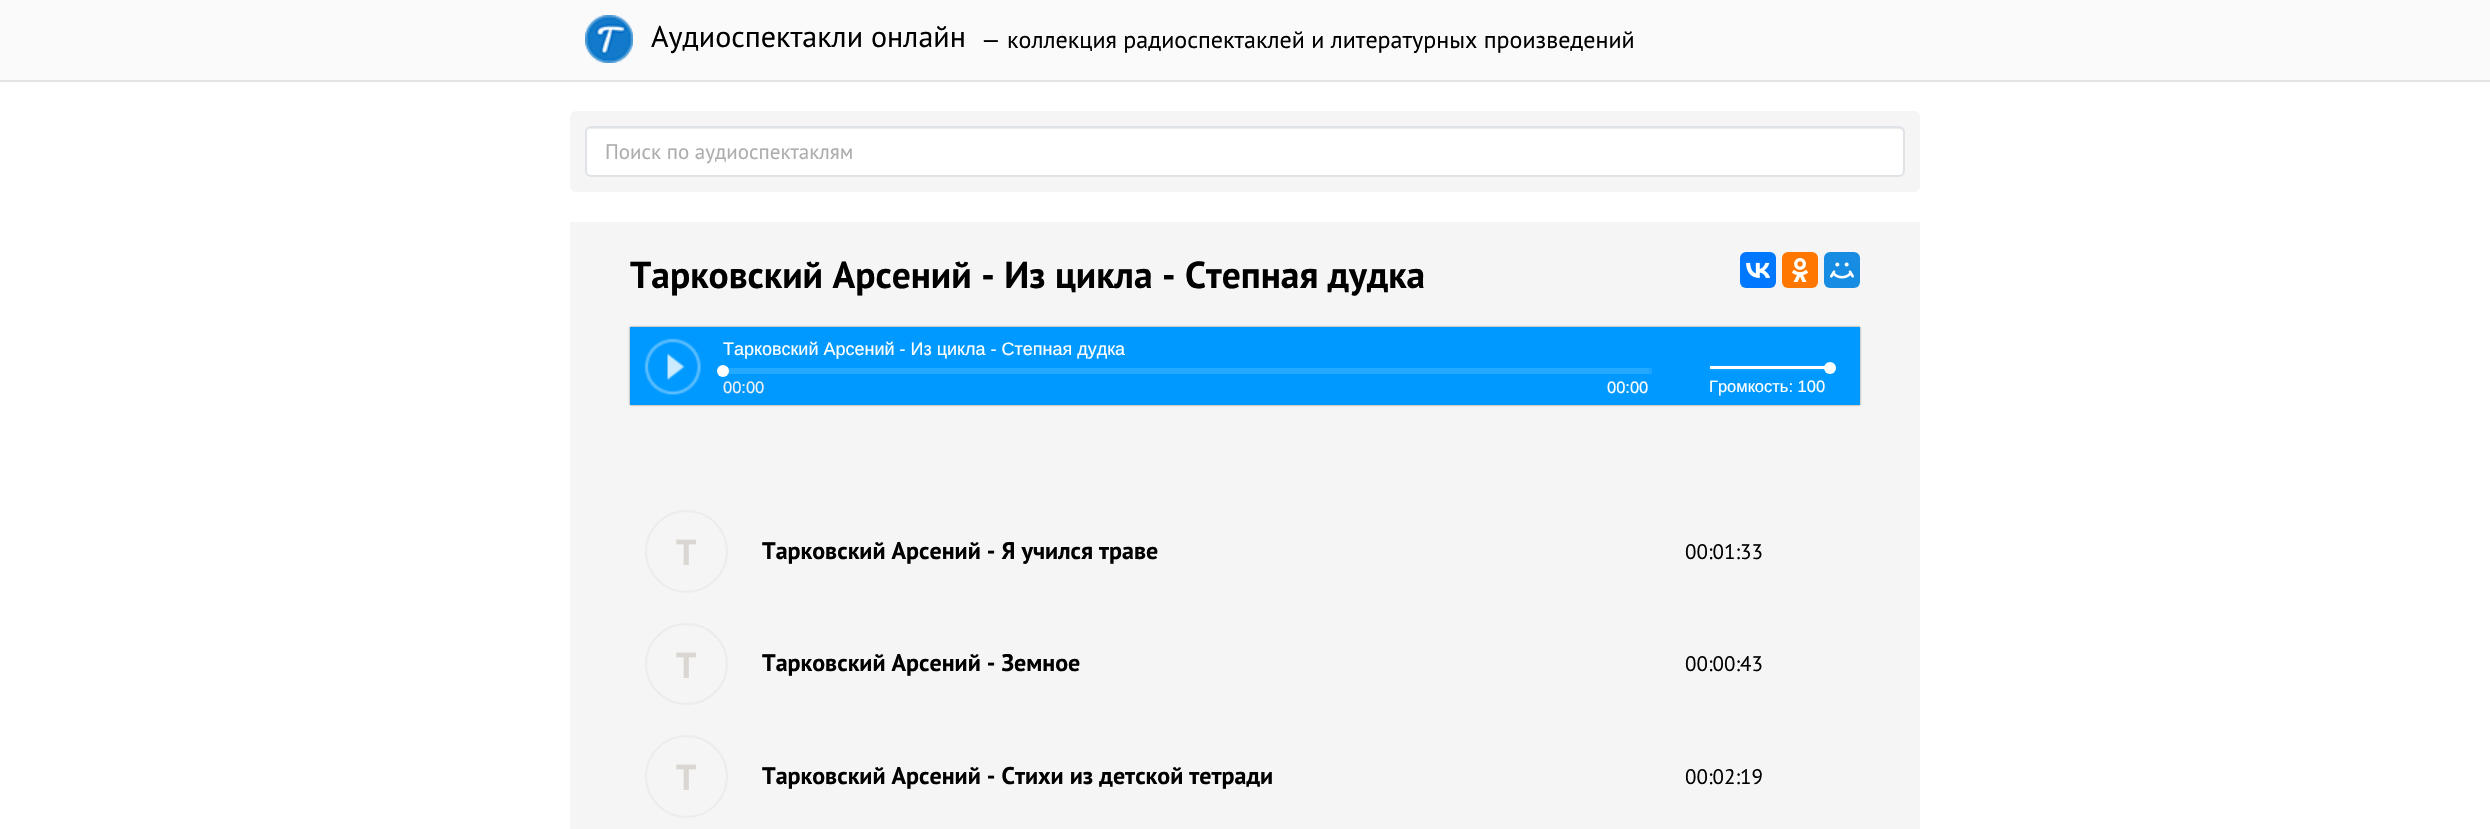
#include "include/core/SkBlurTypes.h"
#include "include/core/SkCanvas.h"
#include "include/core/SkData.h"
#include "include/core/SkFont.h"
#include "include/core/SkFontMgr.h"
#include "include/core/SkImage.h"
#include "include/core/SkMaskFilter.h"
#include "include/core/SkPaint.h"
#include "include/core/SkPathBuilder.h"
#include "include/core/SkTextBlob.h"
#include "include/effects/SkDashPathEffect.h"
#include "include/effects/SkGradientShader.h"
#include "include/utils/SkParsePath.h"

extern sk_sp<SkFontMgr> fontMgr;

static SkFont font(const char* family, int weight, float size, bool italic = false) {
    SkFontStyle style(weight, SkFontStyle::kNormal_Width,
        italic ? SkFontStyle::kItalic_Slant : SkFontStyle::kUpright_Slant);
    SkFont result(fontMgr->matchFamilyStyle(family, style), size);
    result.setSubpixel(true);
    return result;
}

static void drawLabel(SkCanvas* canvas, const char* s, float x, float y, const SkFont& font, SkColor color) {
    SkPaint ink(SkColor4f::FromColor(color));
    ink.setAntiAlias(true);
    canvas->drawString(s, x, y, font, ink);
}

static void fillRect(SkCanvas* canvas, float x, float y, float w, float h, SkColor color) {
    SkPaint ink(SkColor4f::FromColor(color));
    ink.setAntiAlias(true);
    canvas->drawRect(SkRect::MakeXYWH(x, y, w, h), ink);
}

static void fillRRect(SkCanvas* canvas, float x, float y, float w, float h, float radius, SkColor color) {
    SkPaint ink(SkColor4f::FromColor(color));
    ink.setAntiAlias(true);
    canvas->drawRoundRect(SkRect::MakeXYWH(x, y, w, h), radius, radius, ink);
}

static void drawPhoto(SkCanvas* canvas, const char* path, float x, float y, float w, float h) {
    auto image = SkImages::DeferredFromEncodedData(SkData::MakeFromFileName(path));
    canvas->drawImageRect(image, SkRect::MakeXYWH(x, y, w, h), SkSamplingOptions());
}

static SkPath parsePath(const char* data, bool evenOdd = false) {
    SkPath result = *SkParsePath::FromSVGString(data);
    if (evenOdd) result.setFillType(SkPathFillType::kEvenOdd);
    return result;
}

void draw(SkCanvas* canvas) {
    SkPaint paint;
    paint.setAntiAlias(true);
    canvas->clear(0xFFFFFFFF);
    fillRect(canvas, 0, 0, 2490, 80, 0xFFFAFAFA);
    fillRect(canvas, 0, 80, 2490, 2, 0xFFE4E4E4);
    drawPhoto(canvas, "assets/img1.png", 585, 15, 48, 48);
    SkFont font1 = font("PT Sans", 400, 30);
    drawLabel(canvas, "Аудиоспектакли онлайн", 651, 47, font1, 0xFF000000);
    SkFont font2 = font("PT Sans", 400, 24);
    drawLabel(canvas, "— коллекция радиоспектаклей и литературных произведений", 981, 48, font2, 0xFF000000);
    fillRRect(canvas, 570, 111, 1350, 81, 6, 0xFFF5F5F5);
    fillRRect(canvas, 585, 126, 1320, 51, 6, 0xFFFFFFFF);
    paint.setColor(0xFFECECEC);
    canvas->drawPath(parsePath("M591 129H1899C1901 129 1904 131 1904 134V133C1904 130 1902 128 1899 128H592C590 128 589 129 588 130Z"), paint);
    paint.setStroke(true);
    paint.setStrokeWidth(2);
    paint.setColor(0xFFDFE3E8);
    canvas->drawRoundRect(SkRect::MakeXYWH(586, 127, 1318, 49), 5, 5, paint);
    SkFont font3 = font("PT Sans", 400, 21);
    drawLabel(canvas, "Поиск по аудиоспектаклям", 605, 159, font3, 0xFFADADAD);
    fillRect(canvas, 570, 222, 1350, 607, 0xFFF5F5F5);
    SkFont font4 = font("PT Sans", 700, 37.5f);
    drawLabel(canvas, "Тарковский Арсений - Из цикла - Степная дудка", 630, 288, font4, 0xFF000000);
    fillRRect(canvas, 1740, 252, 36, 36, 6, 0xFF0077FF);
    drawPhoto(canvas, "assets/img2.png", 1746, 262, 24, 16);
    fillRRect(canvas, 1782, 252, 36, 36, 6, 0xFFFF7700);
    drawPhoto(canvas, "assets/img3.png", 1792, 258, 17, 24);
    fillRRect(canvas, 1824, 252, 36, 36, 6, 0xFF168DE2);
    drawPhoto(canvas, "assets/img4.png", 1830, 262, 24, 17);
    paint.setStroke(false);
    paint.setColor(0x80000000);
    paint.setMaskFilter(SkMaskFilter::MakeBlur(kNormal_SkBlurStyle, 1));
    canvas->drawRect(SkRect::MakeXYWH(630, 327, 1230, 78), paint);
    paint.setMaskFilter(nullptr);
    fillRect(canvas, 630, 327, 1230, 78, 0xFF0099FF);
    fillRect(canvas, 1649, 368, 3, 6, 0xFF1AA3FF);
    drawPhoto(canvas, "assets/img5.png", 644, 338, 57, 57);
    SkFont font5 = font("Liberation Sans", 400, 18);
    drawLabel(canvas, "Тарковский Арсений - Из цикла - Степная дудка", 723, 355, font5, 0xFFFFFFFF);
    fillRect(canvas, 722, 368, 927, 6, 0xFF25A8FF);
    paint.setColor(0xFFFFFFFF);
    canvas->drawCircle(723, 371, 6, paint);
    SkFont font6 = font("Liberation Sans", 400, 16.5f);
    drawLabel(canvas, "00:00", 723, 393, font6, 0xFFF0F0F0);
    drawLabel(canvas, "00:00", 1607, 393, font6, 0xFFFFFFFF);
    fillRect(canvas, 1709, 365, 120, 6, 0xFF0D9EFF);
    fillRect(canvas, 1710, 366, 117, 3, 0xFFFFFFFF);
    canvas->drawCircle(1830, 368, 6, paint);
    drawLabel(canvas, "Громкость: 100", 1709, 392, font6, 0xFFFFFFFF);
    paint.setStroke(true);
    paint.setColor(0xFFECECEC);
    canvas->drawCircle(686.5f, 551.5f, 40.5f, paint);
    SkFont font7 = font("PT Sans", 700, 36);
    drawLabel(canvas, "Т", 676, 565, font7, 0xFFDAD6D2);
    SkFont font8 = font("PT Sans", 700, 24);
    drawLabel(canvas, "Тарковский Арсений - Я учился траве", 762, 559, font8, 0xFF000000);
    drawLabel(canvas, "00:01:33", 1685, 559, font3, 0xFF000000);
    canvas->drawRoundRect(SkRect::MakeXYWH(646, 624, 81, 80), 40, 40, paint);
    drawLabel(canvas, "Т", 676, 678, font7, 0xFFDAD6D2);
    drawLabel(canvas, "Тарковский Арсений - Земное", 762, 671, font8, 0xFF000000);
    drawLabel(canvas, "00:00:43", 1685, 671, font3, 0xFF000000);
    canvas->drawCircle(686.5f, 776.5f, 40.5f, paint);
    drawLabel(canvas, "Т", 676, 790, font7, 0xFFDAD6D2);
    drawLabel(canvas, "Тарковский Арсений - Стихи из детской тетради", 762, 784, font8, 0xFF000000);
    drawLabel(canvas, "00:02:19", 1685, 784, font3, 0xFF000000);
}
